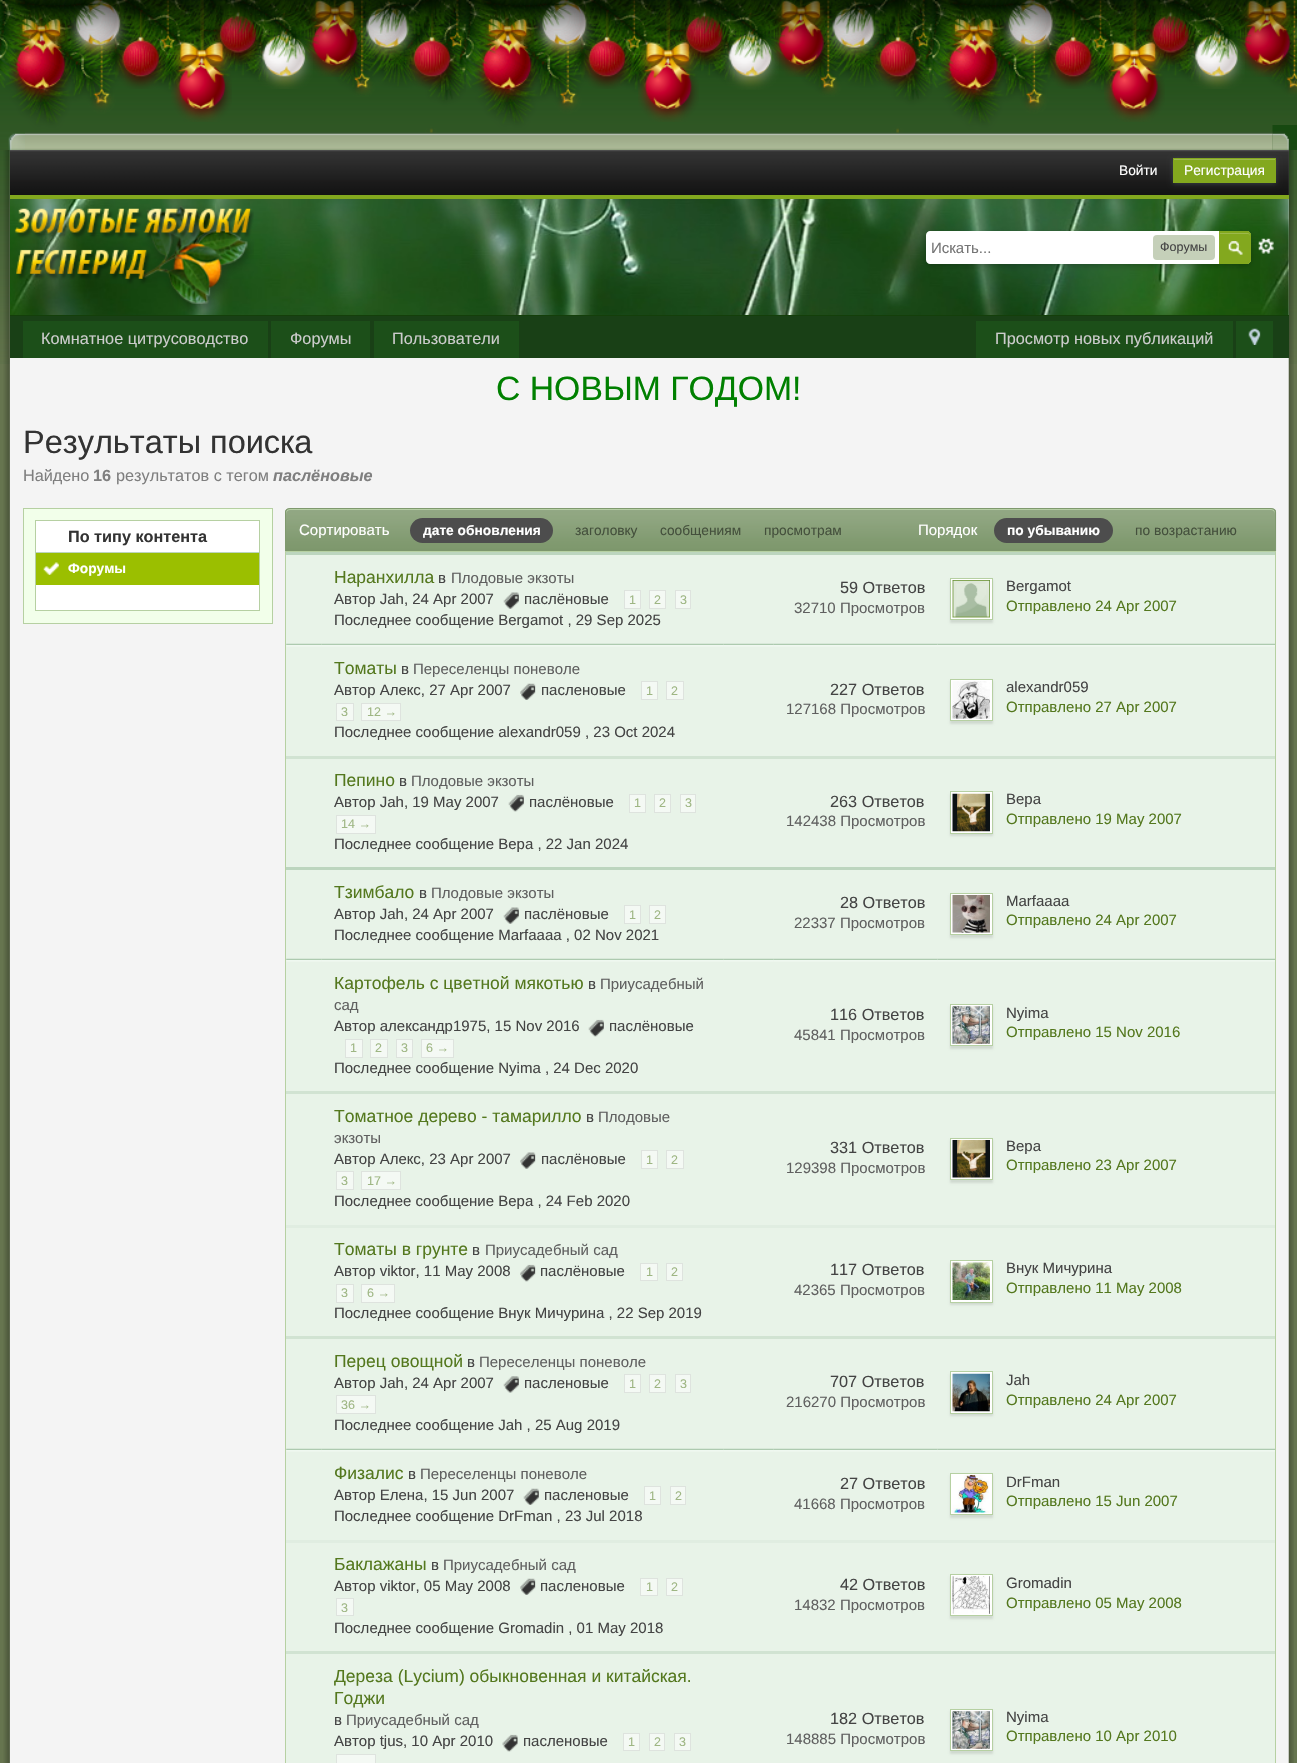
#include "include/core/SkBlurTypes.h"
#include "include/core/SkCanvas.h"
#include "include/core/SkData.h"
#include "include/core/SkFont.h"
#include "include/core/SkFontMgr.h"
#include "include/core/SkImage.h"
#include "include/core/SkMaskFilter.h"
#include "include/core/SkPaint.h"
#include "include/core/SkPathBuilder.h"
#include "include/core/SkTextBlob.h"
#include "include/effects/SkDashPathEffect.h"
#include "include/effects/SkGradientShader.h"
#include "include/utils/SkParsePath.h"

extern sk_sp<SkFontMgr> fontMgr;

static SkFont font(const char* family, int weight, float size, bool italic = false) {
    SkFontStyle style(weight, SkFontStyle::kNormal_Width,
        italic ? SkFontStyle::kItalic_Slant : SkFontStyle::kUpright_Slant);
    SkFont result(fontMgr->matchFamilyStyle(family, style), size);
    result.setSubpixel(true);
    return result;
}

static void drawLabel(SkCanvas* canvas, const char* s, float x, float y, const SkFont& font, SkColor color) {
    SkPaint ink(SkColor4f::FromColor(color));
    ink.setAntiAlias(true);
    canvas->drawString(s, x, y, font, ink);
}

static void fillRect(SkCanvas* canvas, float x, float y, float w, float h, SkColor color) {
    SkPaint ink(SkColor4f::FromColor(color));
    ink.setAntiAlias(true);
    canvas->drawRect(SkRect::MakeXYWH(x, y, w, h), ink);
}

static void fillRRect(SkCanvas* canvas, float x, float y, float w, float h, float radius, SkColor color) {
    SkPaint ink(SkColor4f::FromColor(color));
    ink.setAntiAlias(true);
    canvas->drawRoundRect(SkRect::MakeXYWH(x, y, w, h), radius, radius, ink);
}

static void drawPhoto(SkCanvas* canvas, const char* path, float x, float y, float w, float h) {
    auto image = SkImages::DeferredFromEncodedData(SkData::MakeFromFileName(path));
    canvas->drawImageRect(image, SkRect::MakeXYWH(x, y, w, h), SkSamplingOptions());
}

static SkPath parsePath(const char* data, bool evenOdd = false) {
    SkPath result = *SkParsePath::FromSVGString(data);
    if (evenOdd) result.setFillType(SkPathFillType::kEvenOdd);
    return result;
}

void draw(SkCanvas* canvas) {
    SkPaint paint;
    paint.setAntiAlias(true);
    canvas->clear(0xFF66754F);
    drawPhoto(canvas, "assets/img1.png", 0, 0, 1297, 364);
    drawPhoto(canvas, "assets/img47.png", 1272, 125, 25, 25);
    drawPhoto(canvas, "assets/img48.png", 25, 132, 1248, 18);
    drawPhoto(canvas, "assets/img2.png", 0, 0, 1297, 133);
    drawPhoto(canvas, "assets/img4.png", 9, 0, 62, 102);
    drawPhoto(canvas, "assets/img3.png", 0, 0, 32, 88);
    drawPhoto(canvas, "assets/img6.png", 67, 0, 62, 60);
    drawPhoto(canvas, "assets/img5.png", 31, 0, 76, 34);
    drawPhoto(canvas, "assets/img7.png", 171, 0, 61, 122);
    drawPhoto(canvas, "assets/img8.png", 212, 0, 51, 65);
    drawPhoto(canvas, "assets/img14.png", 255, 7, 58, 82);
    drawPhoto(canvas, "assets/img9.png", 221, 0, 36, 39);
    drawPhoto(canvas, "assets/img11.png", 304, 0, 61, 77);
    drawPhoto(canvas, "assets/img10.png", 256, 0, 63, 63);
    drawPhoto(canvas, "assets/img12.png", 359, 0, 57, 61);
    drawPhoto(canvas, "assets/img13.png", 115, 11, 51, 78);
    drawPhoto(canvas, "assets/img17.png", 406, 12, 51, 78);
    drawPhoto(canvas, "assets/img15.png", 361, 0, 98, 35);
    drawPhoto(canvas, "assets/img16.png", 458, 0, 9, 86);
    drawPhoto(canvas, "assets/img19.png", 475, 0, 63, 102);
    drawPhoto(canvas, "assets/img18.png", 466, 0, 32, 88);
    drawPhoto(canvas, "assets/img21.png", 534, 0, 61, 60);
    drawPhoto(canvas, "assets/img20.png", 497, 0, 77, 34);
    drawPhoto(canvas, "assets/img22.png", 638, 0, 61, 122);
    drawPhoto(canvas, "assets/img23.png", 678, 0, 51, 65);
    drawPhoto(canvas, "assets/img29.png", 721, 7, 58, 83);
    drawPhoto(canvas, "assets/img24.png", 687, 0, 36, 39);
    drawPhoto(canvas, "assets/img26.png", 771, 0, 60, 77);
    drawPhoto(canvas, "assets/img25.png", 722, 0, 63, 63);
    drawPhoto(canvas, "assets/img27.png", 825, 0, 58, 61);
    drawPhoto(canvas, "assets/img28.png", 581, 11, 51, 78);
    drawPhoto(canvas, "assets/img32.png", 873, 12, 50, 78);
    drawPhoto(canvas, "assets/img30.png", 827, 0, 98, 35);
    drawPhoto(canvas, "assets/img31.png", 925, 0, 8, 86);
    drawPhoto(canvas, "assets/img34.png", 941, 0, 63, 102);
    drawPhoto(canvas, "assets/img33.png", 932, 0, 32, 88);
    drawPhoto(canvas, "assets/img36.png", 1000, 0, 61, 60);
    drawPhoto(canvas, "assets/img35.png", 963, 0, 77, 34);
    drawPhoto(canvas, "assets/img37.png", 1104, 0, 61, 122);
    drawPhoto(canvas, "assets/img38.png", 1145, 0, 50, 65);
    drawPhoto(canvas, "assets/img44.png", 1188, 7, 57, 82);
    drawPhoto(canvas, "assets/img39.png", 1153, 0, 36, 39);
    drawPhoto(canvas, "assets/img41.png", 1237, 0, 60, 77);
    drawPhoto(canvas, "assets/img40.png", 1188, 0, 64, 63);
    drawPhoto(canvas, "assets/img42.png", 1294, 0, 3, 11);
    drawPhoto(canvas, "assets/img43.png", 1048, 11, 50, 78);
    drawPhoto(canvas, "assets/img45.png", 1291, 18, 6, 31);
    paint.setColor(0xBF000000);
    paint.setMaskFilter(SkMaskFilter::MakeBlur(kNormal_SkBlurStyle, 19));
    canvas->drawRect(SkRect::MakeXYWH(0, -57, 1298, 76), paint);
    paint.setMaskFilter(nullptr);
    drawPhoto(canvas, "assets/img46.png", 8, 133, 17, 17);
    drawPhoto(canvas, "assets/img49.png", 3, 150, 7, 1613);
    drawPhoto(canvas, "assets/img50.png", 1288, 150, 6, 1613);
    fillRect(canvas, 10, 358, 1278, 1405, 0xFFF4F4F4);
    fillRect(canvas, 10, 150, 1279, 45, 0xFF4D4D4D);
    drawPhoto(canvas, "assets/img51.png", 10, 151, 1279, 44);
    SkFont font1 = font("Liberation Sans", 400, 13.75f);
    drawLabel(canvas, "Войти", 1119, 175, font1, 0xFFFFFFFF);
    paint.setColor(0x665E717E);
    paint.setMaskFilter(SkMaskFilter::MakeBlur(kNormal_SkBlurStyle, 2.5f));
    canvas->drawRect(SkRect::MakeXYWH(1173, 159, 103, 25), paint);
    paint.setMaskFilter(nullptr);
    fillRect(canvas, 1173, 158, 103, 25, 0xFF83A81E);
    fillRect(canvas, 1174, 159, 101, 1, 0xFF9CB94B);
    drawLabel(canvas, "Регистрация", 1184, 175, font1, 0xFFFFFFFF);
    drawPhoto(canvas, "assets/img52.png", 10, 199, 1279, 116);
    fillRect(canvas, 10, 195, 1279, 4, 0xFF82A81E);
    fillRect(canvas, 10, 315, 1279, 1, 0xFF143F0A);
    drawPhoto(canvas, "assets/img53.png", 14, 205, 240, 109);
    drawPhoto(canvas, "assets/img55.png", 1258, 238, 16, 16);
    paint.setColor(0x33000000);
    paint.setMaskFilter(SkMaskFilter::MakeBlur(kNormal_SkBlurStyle, 2.5f));
    canvas->drawRoundRect(SkRect::MakeXYWH(926, 234, 325, 32), 5, 5, paint);
    paint.setMaskFilter(nullptr);
    paint.setColor(0xFFFFFFFF);
    canvas->drawPath(parsePath("M930 231H1246C1249 231 1251 233 1251 236V259C1251 262 1249 264 1246 264H930C928 264 926 262 926 260V235C926 233 928 231 930 231Z"), paint);
    SkFont font2 = font("Liberation Sans", 400, 15);
    drawLabel(canvas, "Искать...", 931, 253, font2, 0xFF757575);
    fillRRect(canvas, 1153, 235, 62, 25, 4, 0xFFC5D0B9);
    SkFont font3 = font("Liberation Sans", 400, 12.5f);
    drawLabel(canvas, "Форумы", 1160, 251, font3, 0xFF444444);
    paint.setColor(0xFF83A81E);
    canvas->drawPath(parsePath("M1219 231H1247C1249 231 1251 233 1251 235V260C1251 262 1249 264 1247 264H1219Z"), paint);
    drawPhoto(canvas, "assets/img54.png", 1228, 241, 15, 14);
    paint.setColor(0xFF9CB94B);
    canvas->drawPath(parsePath("M1220 234H1248C1249 234 1250 235 1250 236V235.5C1250 234 1249 233 1247.5 233H1220Z"), paint);
    paint.setStroke(true);
    paint.setStrokeWidth(1);
    paint.setColor(0xFF83A81E);
    canvas->drawPath(parsePath("M1219.5 231.5H1247C1249 231.5 1250.5 233 1250.5 235V260C1250.5 262 1249 263.5 1247 263.5H1219.5Z"), paint);
    fillRect(canvas, 10, 316, 1279, 42, 0xFF194016);
    fillRect(canvas, 23, 321, 245, 37, 0xFF1C4F19);
    SkFont font4 = font("Liberation Sans", 400, 16.25f);
    drawLabel(canvas, "Комнатное цитрусоводство", 41, 344, font4, 0xFFCCCCCC);
    fillRect(canvas, 271, 321, 99, 37, 0xFF1C4F19);
    drawLabel(canvas, "Форумы", 290, 344, font4, 0xFFCCCCCC);
    fillRect(canvas, 374, 321, 145, 37, 0xFF1C4F19);
    drawLabel(canvas, "Пользователи", 392, 344, font4, 0xFFCCCCCC);
    fillRect(canvas, 976, 321, 257, 37, 0xFF1C4F19);
    drawLabel(canvas, "Просмотр новых публикаций", 995, 344, font4, 0xFFCCCCCC);
    fillRect(canvas, 1236, 321, 37, 37, 0xFF1C4F19);
    drawPhoto(canvas, "assets/img56.png", 1248, 328, 13, 17);
    SkFont font5 = font("Liberation Sans", 400, 33.75f);
    drawLabel(canvas, "C НОВЫМ ГОДОМ!", 496, 400, font5, 0xFF008000);
    SkFont font6 = font("Liberation Sans", 400, 32.5f);
    drawLabel(canvas, "Результаты поиска", 23, 453, font6, 0xFF333333);
    drawLabel(canvas, "Найдено", 23, 481, font4, 0xFF7F7F7F);
    SkFont font7 = font("Liberation Sans", 700, 16.25f);
    drawLabel(canvas, "16", 93, 481, font7, 0xFF7F7F7F);
    drawLabel(canvas, "результатов с тегом", 116, 481, font4, 0xFF7F7F7F);
    SkFont font8 = font("Liberation Sans", 700, 16.25f, true);
    drawLabel(canvas, "паслёновые", 273, 481, font8, 0xFF7F7F7F);
    paint.setStroke(false);
    paint.setColor(0xFFF2FFEA);
    canvas->drawRect(SkRect::MakeXYWH(23.5f, 508.5f, 249, 115), paint);
    paint.setStroke(true);
    paint.setColor(0xFFB6D0A2);
    canvas->drawRect(SkRect::MakeXYWH(23.5f, 508.5f, 249, 115), paint);
    paint.setStroke(false);
    paint.setColor(0xFFFFFFFF);
    canvas->drawRect(SkRect::MakeXYWH(35.5f, 520.5f, 224, 90), paint);
    paint.setStroke(true);
    paint.setColor(0xFFB6D0A2);
    canvas->drawRect(SkRect::MakeXYWH(35.5f, 520.5f, 224, 90), paint);
    drawLabel(canvas, "По типу контента", 68, 542, font7, 0xFF333333);
    fillRect(canvas, 36, 552, 223, 1, 0xFFBCD5BE);
    fillRect(canvas, 36, 553, 223, 32, 0xFF9BBF00);
    drawPhoto(canvas, "assets/img57.png", 43, 562, 16, 13);
    SkFont font9 = font("Liberation Sans", 700, 13.75f);
    drawLabel(canvas, "Форумы", 68, 573, font9, 0xFFFFFFFF);
    drawPhoto(canvas, "assets/img58.png", 285, 508, 992, 43);
    paint.setStroke(false);
    paint.setColor(0xFFB6CFA5);
    canvas->drawPath(parsePath("M290 510H1271C1273 510 1275 512 1275 514C1275 511 1274 509 1271 509H290C287 509 286 511 286 514C286 512 288 510 290 510Z"), paint);
    paint.setColor(0xFF7F996E);
    canvas->drawPath(parsePath("M290 508H1271C1274 508 1276 510 1276 512V551H285V512C285 510 287 508 290 508ZM290 509H1271C1273 509 1275 510 1275 512V551H286V512C286 510 288 509 290 509Z", true), paint);
    drawLabel(canvas, "Сортировать", 299, 535, font2, 0xFFFFFFFF);
    fillRRect(canvas, 410, 518, 143, 25, 12.5f, 0xFF4D4D4D);
    drawLabel(canvas, "дате обновления", 423, 535, font9, 0xFFFFFFFF);
    drawLabel(canvas, "заголовку", 575, 535, font1, 0xFF44503C);
    drawLabel(canvas, "сообщениям", 660, 535, font1, 0xFF44503C);
    drawLabel(canvas, "просмотрам", 764, 535, font1, 0xFF44503C);
    drawLabel(canvas, "Порядок", 918, 535, font2, 0xFFFFFFFF);
    fillRRect(canvas, 994, 518, 119, 25, 12.5f, 0xFF4D4D4D);
    drawLabel(canvas, "по убыванию", 1007, 535, font9, 0xFFFFFFFF);
    drawLabel(canvas, "по возрастанию", 1135, 535, font1, 0xFF44503C);
    paint.setStroke(true);
    paint.setColor(0xFFB6D0A2);
    canvas->drawRect(SkRect::MakeXYWH(285.5f, 551.5f, 990, 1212), paint);
    fillRect(canvas, 286, 555, 989, 1208, 0xFFE8F3E8);
    fillRect(canvas, 286, 552, 989, 3, 0xFFBCD5BE);
    SkFont font10 = font("Liberation Sans", 400, 17.5f);
    drawLabel(canvas, "Наранхилла", 334, 583, font10, 0xFF54781E);
    drawLabel(canvas, "в", 438, 583, font2, 0xFF444444);
    drawLabel(canvas, "Плодовые экзоты", 451, 583, font2, 0xFF606060);
    drawLabel(canvas, "Автор Jah, 24 Apr 2007", 334, 604, font2, 0xFF444444);
    drawPhoto(canvas, "assets/img59.png", 503, 592, 16, 17);
    drawLabel(canvas, "паслёновые", 524, 604, font2, 0xFF444444);
    paint.setStroke(false);
    paint.setColor(0xFFF4F9F4);
    canvas->drawRect(SkRect::MakeXYWH(624.5f, 590.5f, 16, 18), paint);
    paint.setStroke(true);
    paint.setColor(0xFFDEE3DE);
    canvas->drawRect(SkRect::MakeXYWH(624.5f, 590.5f, 16, 18), paint);
    drawLabel(canvas, "1", 629, 604, font3, 0xFF9EB683);
    paint.setStroke(false);
    paint.setColor(0xFFF4F9F4);
    canvas->drawRect(SkRect::MakeXYWH(649.5f, 590.5f, 16, 18), paint);
    paint.setStroke(true);
    paint.setColor(0xFFDEE3DE);
    canvas->drawRect(SkRect::MakeXYWH(649.5f, 590.5f, 16, 18), paint);
    drawLabel(canvas, "2", 654, 604, font3, 0xFF9EB683);
    paint.setStroke(false);
    paint.setColor(0xFFF4F9F4);
    canvas->drawRect(SkRect::MakeXYWH(675.5f, 590.5f, 15, 18), paint);
    paint.setStroke(true);
    paint.setColor(0xFFDEE3DE);
    canvas->drawRect(SkRect::MakeXYWH(675.5f, 590.5f, 15, 18), paint);
    drawLabel(canvas, "3", 680, 604, font3, 0xFF9EB683);
    drawLabel(canvas, "Последнее сообщение Bergamot , 29 Sep 2025", 334, 625, font2, 0xFF444444);
    drawLabel(canvas, "59 Ответов", 840, 593, font4, 0xFF444444);
    drawLabel(canvas, "32710 Просмотров", 794, 613, font2, 0xFF606060);
    paint.setStroke(false);
    paint.setColor(0x1A000000);
    paint.setMaskFilter(SkMaskFilter::MakeBlur(kNormal_SkBlurStyle, 1));
    canvas->drawRect(SkRect::MakeXYWH(950, 580, 43, 43), paint);
    paint.setMaskFilter(nullptr);
    paint.setColor(0xFFFFFFFF);
    canvas->drawRect(SkRect::MakeXYWH(950.5f, 578.5f, 42, 41), paint);
    paint.setStroke(true);
    paint.setColor(0xFFB6D0A2);
    canvas->drawRect(SkRect::MakeXYWH(950.5f, 578.5f, 42, 41), paint);
    drawPhoto(canvas, "assets/img60.png", 952, 580, 38, 38);
    drawLabel(canvas, "Bergamot", 1006, 591, font2, 0xFF444444);
    drawLabel(canvas, "Отправлено 24 Apr 2007", 1006, 611, font2, 0xFF54781E);
    drawPhoto(canvas, "assets/img61.png", 286, 643, 36, 4);
    drawPhoto(canvas, "assets/img63.png", 321, 643, 403, 4);
    drawPhoto(canvas, "assets/img62.png", 723, 643, 51, 4);
    drawLabel(canvas, "Томаты", 334, 674, font10, 0xFF54781E);
    drawLabel(canvas, "в", 401, 674, font2, 0xFF444444);
    drawLabel(canvas, "Переселенцы поневоле", 413, 674, font2, 0xFF606060);
    drawLabel(canvas, "Автор Aлекc, 27 Apr 2007", 334, 695, font2, 0xFF444444);
    drawPhoto(canvas, "assets/img64.png", 520, 683, 16, 17);
    drawLabel(canvas, "пасленовые", 541, 695, font2, 0xFF444444);
    paint.setStroke(false);
    paint.setColor(0xFFF4F9F4);
    canvas->drawRect(SkRect::MakeXYWH(641.5f, 681.5f, 16, 18), paint);
    paint.setStroke(true);
    paint.setColor(0xFFDEE3DE);
    canvas->drawRect(SkRect::MakeXYWH(641.5f, 681.5f, 16, 18), paint);
    drawLabel(canvas, "1", 646, 695, font3, 0xFF9EB683);
    paint.setStroke(false);
    paint.setColor(0xFFF4F9F4);
    canvas->drawRect(SkRect::MakeXYWH(666.5f, 681.5f, 17, 18), paint);
    paint.setStroke(true);
    paint.setColor(0xFFDEE3DE);
    canvas->drawRect(SkRect::MakeXYWH(666.5f, 681.5f, 17, 18), paint);
    drawLabel(canvas, "2", 671, 695, font3, 0xFF9EB683);
    paint.setStroke(false);
    paint.setColor(0xFFF4F9F4);
    canvas->drawRect(SkRect::MakeXYWH(336.5f, 703.5f, 17, 17), paint);
    paint.setStroke(true);
    paint.setColor(0xFFDEE3DE);
    canvas->drawRect(SkRect::MakeXYWH(336.5f, 703.5f, 17, 17), paint);
    drawLabel(canvas, "3", 341, 716, font3, 0xFF9EB683);
    paint.setStroke(false);
    paint.setColor(0xFFF4F9F4);
    canvas->drawRect(SkRect::MakeXYWH(361.5f, 703.5f, 39, 17), paint);
    paint.setStroke(true);
    paint.setColor(0xFFDEE3DE);
    canvas->drawRect(SkRect::MakeXYWH(361.5f, 703.5f, 39, 17), paint);
    drawLabel(canvas, "12 →", 367, 716, font3, 0xFF9EB683);
    drawLabel(canvas, "Последнее сообщение alexandr059 , 23 Oct 2024", 334, 737, font2, 0xFF444444);
    drawPhoto(canvas, "assets/img65.png", 773, 643, 165, 4);
    drawLabel(canvas, "227 Ответов", 830, 695, font4, 0xFF444444);
    drawLabel(canvas, "127168 Просмотров", 786, 714, font2, 0xFF606060);
    drawPhoto(canvas, "assets/img66.png", 937, 643, 338, 4);
    paint.setStroke(false);
    paint.setColor(0x1A000000);
    paint.setMaskFilter(SkMaskFilter::MakeBlur(kNormal_SkBlurStyle, 1));
    canvas->drawRect(SkRect::MakeXYWH(950, 681, 43, 43), paint);
    paint.setMaskFilter(nullptr);
    paint.setColor(0xFFFFFFFF);
    canvas->drawRect(SkRect::MakeXYWH(950.5f, 679.5f, 42, 41), paint);
    paint.setStroke(true);
    paint.setColor(0xFFB6D0A2);
    canvas->drawRect(SkRect::MakeXYWH(950.5f, 679.5f, 42, 41), paint);
    drawPhoto(canvas, "assets/img67.png", 952, 681, 38, 38);
    drawLabel(canvas, "alexandr059", 1006, 692, font2, 0xFF444444);
    drawLabel(canvas, "Отправлено 27 Apr 2007", 1006, 712, font2, 0xFF54781E);
    fillRect(canvas, 286, 756, 989, 3, 0xFFD1E3D2);
    drawLabel(canvas, "Пепино", 334, 786, font10, 0xFF54781E);
    drawLabel(canvas, "в", 399, 786, font2, 0xFF444444);
    drawLabel(canvas, "Плодовые экзоты", 411, 786, font2, 0xFF606060);
    drawLabel(canvas, "Автор Jah, 19 May 2007", 334, 807, font2, 0xFF444444);
    drawPhoto(canvas, "assets/img68.png", 508, 794, 16, 18);
    drawLabel(canvas, "паслёновые", 529, 807, font2, 0xFF444444);
    paint.setStroke(false);
    paint.setColor(0xFFF4F9F4);
    canvas->drawRect(SkRect::MakeXYWH(629.5f, 794.5f, 16, 18), paint);
    paint.setStroke(true);
    paint.setColor(0xFFDEE3DE);
    canvas->drawRect(SkRect::MakeXYWH(629.5f, 794.5f, 16, 18), paint);
    drawLabel(canvas, "1", 634, 807, font3, 0xFF9EB683);
    paint.setStroke(false);
    paint.setColor(0xFFF4F9F4);
    canvas->drawRect(SkRect::MakeXYWH(654.5f, 794.5f, 16, 18), paint);
    paint.setStroke(true);
    paint.setColor(0xFFDEE3DE);
    canvas->drawRect(SkRect::MakeXYWH(654.5f, 794.5f, 16, 18), paint);
    drawLabel(canvas, "2", 659, 807, font3, 0xFF9EB683);
    paint.setStroke(false);
    paint.setColor(0xFFF4F9F4);
    canvas->drawRect(SkRect::MakeXYWH(680.5f, 794.5f, 15, 18), paint);
    paint.setStroke(true);
    paint.setColor(0xFFDEE3DE);
    canvas->drawRect(SkRect::MakeXYWH(680.5f, 794.5f, 15, 18), paint);
    drawLabel(canvas, "3", 685, 807, font3, 0xFF9EB683);
    paint.setStroke(false);
    paint.setColor(0xFFF4F9F4);
    canvas->drawRect(SkRect::MakeXYWH(336.5f, 815.5f, 39, 18), paint);
    paint.setStroke(true);
    paint.setColor(0xFFDEE3DE);
    canvas->drawRect(SkRect::MakeXYWH(336.5f, 815.5f, 39, 18), paint);
    drawLabel(canvas, "14 →", 341, 828, font3, 0xFF9EB683);
    drawLabel(canvas, "Последнее сообщение Вера , 22 Jan 2024", 334, 849, font2, 0xFF444444);
    drawLabel(canvas, "263 Ответов", 830, 807, font4, 0xFF444444);
    drawLabel(canvas, "142438 Просмотров", 786, 826, font2, 0xFF606060);
    paint.setStroke(false);
    paint.setColor(0x1A000000);
    paint.setMaskFilter(SkMaskFilter::MakeBlur(kNormal_SkBlurStyle, 1));
    canvas->drawRect(SkRect::MakeXYWH(950, 794, 43, 42), paint);
    paint.setMaskFilter(nullptr);
    paint.setColor(0xFFFFFFFF);
    canvas->drawRect(SkRect::MakeXYWH(950.5f, 791.5f, 42, 42), paint);
    paint.setStroke(true);
    paint.setColor(0xFFB6D0A2);
    canvas->drawRect(SkRect::MakeXYWH(950.5f, 791.5f, 42, 42), paint);
    drawPhoto(canvas, "assets/img69.png", 952, 793, 38, 39);
    drawLabel(canvas, "Вера", 1006, 804, font2, 0xFF444444);
    drawLabel(canvas, "Отправлено 19 May 2007", 1006, 824, font2, 0xFF54781E);
    fillRect(canvas, 286, 867, 989, 3, 0xFFBCD5BE);
    drawLabel(canvas, "Тзимбало", 334, 898, font10, 0xFF54781E);
    drawLabel(canvas, "в", 419, 898, font2, 0xFF444444);
    drawLabel(canvas, "Плодовые экзоты", 431, 898, font2, 0xFF606060);
    drawLabel(canvas, "Автор Jah, 24 Apr 2007", 334, 919, font2, 0xFF444444);
    drawPhoto(canvas, "assets/img59.png", 503, 907, 16, 17);
    drawLabel(canvas, "паслёновые", 524, 919, font2, 0xFF444444);
    paint.setStroke(false);
    paint.setColor(0xFFF4F9F4);
    canvas->drawRect(SkRect::MakeXYWH(624.5f, 905.5f, 16, 18), paint);
    paint.setStroke(true);
    paint.setColor(0xFFDEE3DE);
    canvas->drawRect(SkRect::MakeXYWH(624.5f, 905.5f, 16, 18), paint);
    drawLabel(canvas, "1", 629, 919, font3, 0xFF9EB683);
    paint.setStroke(false);
    paint.setColor(0xFFF4F9F4);
    canvas->drawRect(SkRect::MakeXYWH(649.5f, 905.5f, 16, 18), paint);
    paint.setStroke(true);
    paint.setColor(0xFFDEE3DE);
    canvas->drawRect(SkRect::MakeXYWH(649.5f, 905.5f, 16, 18), paint);
    drawLabel(canvas, "2", 654, 919, font3, 0xFF9EB683);
    drawLabel(canvas, "Последнее сообщение Marfaaaa , 02 Nov 2021", 334, 940, font2, 0xFF444444);
    drawLabel(canvas, "28 Ответов", 840, 908, font4, 0xFF444444);
    drawLabel(canvas, "22337 Просмотров", 794, 928, font2, 0xFF606060);
    paint.setStroke(false);
    paint.setColor(0x1A000000);
    paint.setMaskFilter(SkMaskFilter::MakeBlur(kNormal_SkBlurStyle, 1));
    canvas->drawRect(SkRect::MakeXYWH(950, 895, 43, 43), paint);
    paint.setMaskFilter(nullptr);
    paint.setColor(0xFFFFFFFF);
    canvas->drawRect(SkRect::MakeXYWH(950.5f, 893.5f, 42, 41), paint);
    paint.setStroke(true);
    paint.setColor(0xFFB6D0A2);
    canvas->drawRect(SkRect::MakeXYWH(950.5f, 893.5f, 42, 41), paint);
    drawPhoto(canvas, "assets/img70.png", 952, 895, 38, 38);
    drawLabel(canvas, "Marfaaaa", 1006, 906, font2, 0xFF444444);
    drawLabel(canvas, "Отправлено 24 Apr 2007", 1006, 925, font2, 0xFF54781E);
    drawPhoto(canvas, "assets/img61.png", 286, 958, 36, 4);
    drawPhoto(canvas, "assets/img63.png", 321, 958, 403, 4);
    drawPhoto(canvas, "assets/img62.png", 723, 958, 51, 4);
    drawLabel(canvas, "Картофель с цветной мякотью", 334, 989, font10, 0xFF54781E);
    drawLabel(canvas, "в", 588, 989, font2, 0xFF444444);
    drawLabel(canvas, "Приусадебный", 600, 989, font2, 0xFF606060);
    drawLabel(canvas, "сад", 334, 1010, font2, 0xFF606060);
    drawLabel(canvas, "Автор александр1975, 15 Nov 2016", 334, 1031, font2, 0xFF444444);
    drawPhoto(canvas, "assets/img71.png", 588, 1019, 16, 18);
    drawLabel(canvas, "паслёновые", 609, 1031, font2, 0xFF444444);
    paint.setStroke(false);
    paint.setColor(0xFFF4F9F4);
    canvas->drawRect(SkRect::MakeXYWH(345.5f, 1039.5f, 17, 18), paint);
    paint.setStroke(true);
    paint.setColor(0xFFDEE3DE);
    canvas->drawRect(SkRect::MakeXYWH(345.5f, 1039.5f, 17, 18), paint);
    drawLabel(canvas, "1", 350, 1052, font3, 0xFF9EB683);
    paint.setStroke(false);
    paint.setColor(0xFFF4F9F4);
    canvas->drawRect(SkRect::MakeXYWH(370.5f, 1039.5f, 17, 18), paint);
    paint.setStroke(true);
    paint.setColor(0xFFDEE3DE);
    canvas->drawRect(SkRect::MakeXYWH(370.5f, 1039.5f, 17, 18), paint);
    drawLabel(canvas, "2", 375, 1052, font3, 0xFF9EB683);
    paint.setStroke(false);
    paint.setColor(0xFFF4F9F4);
    canvas->drawRect(SkRect::MakeXYWH(396.5f, 1039.5f, 16, 18), paint);
    paint.setStroke(true);
    paint.setColor(0xFFDEE3DE);
    canvas->drawRect(SkRect::MakeXYWH(396.5f, 1039.5f, 16, 18), paint);
    drawLabel(canvas, "3", 401, 1052, font3, 0xFF9EB683);
    paint.setStroke(false);
    paint.setColor(0xFFF4F9F4);
    canvas->drawRect(SkRect::MakeXYWH(421.5f, 1039.5f, 32, 18), paint);
    paint.setStroke(true);
    paint.setColor(0xFFDEE3DE);
    canvas->drawRect(SkRect::MakeXYWH(421.5f, 1039.5f, 32, 18), paint);
    drawLabel(canvas, "6 →", 426, 1052, font3, 0xFF9EB683);
    drawLabel(canvas, "Последнее сообщение Nyima , 24 Dec 2020", 334, 1073, font2, 0xFF444444);
    drawPhoto(canvas, "assets/img65.png", 773, 958, 165, 4);
    drawLabel(canvas, "116 Ответов", 830, 1020, font4, 0xFF444444);
    drawLabel(canvas, "45841 Просмотров", 794, 1040, font2, 0xFF606060);
    drawPhoto(canvas, "assets/img66.png", 937, 958, 338, 4);
    paint.setStroke(false);
    paint.setColor(0x1A000000);
    paint.setMaskFilter(SkMaskFilter::MakeBlur(kNormal_SkBlurStyle, 1));
    canvas->drawRect(SkRect::MakeXYWH(950, 1006, 43, 43), paint);
    paint.setMaskFilter(nullptr);
    paint.setColor(0xFFFFFFFF);
    canvas->drawRect(SkRect::MakeXYWH(950.5f, 1004.5f, 42, 41), paint);
    paint.setStroke(true);
    paint.setColor(0xFFB6D0A2);
    canvas->drawRect(SkRect::MakeXYWH(950.5f, 1004.5f, 42, 41), paint);
    drawPhoto(canvas, "assets/img72.png", 952, 1006, 38, 38);
    drawLabel(canvas, "Nyima", 1006, 1018, font2, 0xFF444444);
    drawLabel(canvas, "Отправлено 15 Nov 2016", 1006, 1037, font2, 0xFF54781E);
    fillRect(canvas, 286, 1091, 989, 3, 0xFFD1E3D2);
    drawLabel(canvas, "Томатное дерево - тамарилло", 334, 1122, font10, 0xFF54781E);
    drawLabel(canvas, "в", 586, 1122, font2, 0xFF444444);
    drawLabel(canvas, "Плодовые", 598, 1122, font2, 0xFF606060);
    drawLabel(canvas, "экзоты", 334, 1143, font2, 0xFF606060);
    drawLabel(canvas, "Автор Aлекc, 23 Apr 2007", 334, 1164, font2, 0xFF444444);
    drawPhoto(canvas, "assets/img73.png", 520, 1152, 16, 17);
    drawLabel(canvas, "паслёновые", 541, 1164, font2, 0xFF444444);
    paint.setStroke(false);
    paint.setColor(0xFFF4F9F4);
    canvas->drawRect(SkRect::MakeXYWH(641.5f, 1150.5f, 16, 18), paint);
    paint.setStroke(true);
    paint.setColor(0xFFDEE3DE);
    canvas->drawRect(SkRect::MakeXYWH(641.5f, 1150.5f, 16, 18), paint);
    drawLabel(canvas, "1", 646, 1164, font3, 0xFF9EB683);
    paint.setStroke(false);
    paint.setColor(0xFFF4F9F4);
    canvas->drawRect(SkRect::MakeXYWH(666.5f, 1150.5f, 17, 18), paint);
    paint.setStroke(true);
    paint.setColor(0xFFDEE3DE);
    canvas->drawRect(SkRect::MakeXYWH(666.5f, 1150.5f, 17, 18), paint);
    drawLabel(canvas, "2", 671, 1164, font3, 0xFF9EB683);
    paint.setStroke(false);
    paint.setColor(0xFFF4F9F4);
    canvas->drawRect(SkRect::MakeXYWH(336.5f, 1171.5f, 17, 18), paint);
    paint.setStroke(true);
    paint.setColor(0xFFDEE3DE);
    canvas->drawRect(SkRect::MakeXYWH(336.5f, 1171.5f, 17, 18), paint);
    drawLabel(canvas, "3", 341, 1185, font3, 0xFF9EB683);
    paint.setStroke(false);
    paint.setColor(0xFFF4F9F4);
    canvas->drawRect(SkRect::MakeXYWH(361.5f, 1171.5f, 39, 18), paint);
    paint.setStroke(true);
    paint.setColor(0xFFDEE3DE);
    canvas->drawRect(SkRect::MakeXYWH(361.5f, 1171.5f, 39, 18), paint);
    drawLabel(canvas, "17 →", 367, 1185, font3, 0xFF9EB683);
    drawLabel(canvas, "Последнее сообщение Вера , 24 Feb 2020", 334, 1206, font2, 0xFF444444);
    drawLabel(canvas, "331 Ответов", 830, 1153, font4, 0xFF444444);
    drawLabel(canvas, "129398 Просмотров", 786, 1173, font2, 0xFF606060);
    paint.setStroke(false);
    paint.setColor(0x1A000000);
    paint.setMaskFilter(SkMaskFilter::MakeBlur(kNormal_SkBlurStyle, 1));
    canvas->drawRect(SkRect::MakeXYWH(950, 1140, 43, 43), paint);
    paint.setMaskFilter(nullptr);
    paint.setColor(0xFFFFFFFF);
    canvas->drawRect(SkRect::MakeXYWH(950.5f, 1138.5f, 42, 41), paint);
    paint.setStroke(true);
    paint.setColor(0xFFB6D0A2);
    canvas->drawRect(SkRect::MakeXYWH(950.5f, 1138.5f, 42, 41), paint);
    drawPhoto(canvas, "assets/img74.png", 952, 1140, 38, 38);
    drawLabel(canvas, "Вера", 1006, 1151, font2, 0xFF444444);
    drawLabel(canvas, "Отправлено 23 Apr 2007", 1006, 1170, font2, 0xFF54781E);
    fillRect(canvas, 286, 1225, 989, 3, 0xFFE0EDE1);
    drawLabel(canvas, "Томаты в грунте", 334, 1255, font10, 0xFF54781E);
    drawLabel(canvas, "в", 472, 1255, font2, 0xFF444444);
    drawLabel(canvas, "Приусадебный сад", 485, 1255, font2, 0xFF606060);
    drawLabel(canvas, "Автор viktor, 11 May 2008", 334, 1276, font2, 0xFF444444);
    drawPhoto(canvas, "assets/img75.png", 520, 1264, 16, 18);
    drawLabel(canvas, "паслёновые", 540, 1276, font2, 0xFF444444);
    paint.setStroke(false);
    paint.setColor(0xFFF4F9F4);
    canvas->drawRect(SkRect::MakeXYWH(640.5f, 1263.5f, 17, 17), paint);
    paint.setStroke(true);
    paint.setColor(0xFFDEE3DE);
    canvas->drawRect(SkRect::MakeXYWH(640.5f, 1263.5f, 17, 17), paint);
    drawLabel(canvas, "1", 646, 1276, font3, 0xFF9EB683);
    paint.setStroke(false);
    paint.setColor(0xFFF4F9F4);
    canvas->drawRect(SkRect::MakeXYWH(666.5f, 1263.5f, 16, 17), paint);
    paint.setStroke(true);
    paint.setColor(0xFFDEE3DE);
    canvas->drawRect(SkRect::MakeXYWH(666.5f, 1263.5f, 16, 17), paint);
    drawLabel(canvas, "2", 671, 1276, font3, 0xFF9EB683);
    paint.setStroke(false);
    paint.setColor(0xFFF4F9F4);
    canvas->drawRect(SkRect::MakeXYWH(336.5f, 1284.5f, 17, 18), paint);
    paint.setStroke(true);
    paint.setColor(0xFFDEE3DE);
    canvas->drawRect(SkRect::MakeXYWH(336.5f, 1284.5f, 17, 18), paint);
    drawLabel(canvas, "3", 341, 1297, font3, 0xFF9EB683);
    paint.setStroke(false);
    paint.setColor(0xFFF4F9F4);
    canvas->drawRect(SkRect::MakeXYWH(361.5f, 1284.5f, 33, 18), paint);
    paint.setStroke(true);
    paint.setColor(0xFFDEE3DE);
    canvas->drawRect(SkRect::MakeXYWH(361.5f, 1284.5f, 33, 18), paint);
    drawLabel(canvas, "6 →", 367, 1297, font3, 0xFF9EB683);
    drawLabel(canvas, "Последнее сообщение Внук Мичурина , 22 Sep 2019", 334, 1318, font2, 0xFF444444);
    drawLabel(canvas, "117 Ответов", 830, 1275, font4, 0xFF444444);
    drawLabel(canvas, "42365 Просмотров", 794, 1295, font2, 0xFF606060);
    paint.setStroke(false);
    paint.setColor(0x1A000000);
    paint.setMaskFilter(SkMaskFilter::MakeBlur(kNormal_SkBlurStyle, 1));
    canvas->drawRect(SkRect::MakeXYWH(950, 1263, 43, 42), paint);
    paint.setMaskFilter(nullptr);
    paint.setColor(0xFFFFFFFF);
    canvas->drawRect(SkRect::MakeXYWH(950.5f, 1260.5f, 42, 42), paint);
    paint.setStroke(true);
    paint.setColor(0xFFB6D0A2);
    canvas->drawRect(SkRect::MakeXYWH(950.5f, 1260.5f, 42, 42), paint);
    drawPhoto(canvas, "assets/img76.png", 952, 1262, 38, 38);
    drawLabel(canvas, "Внук Мичурина", 1006, 1273, font2, 0xFF444444);
    drawLabel(canvas, "Отправлено 11 May 2008", 1006, 1293, font2, 0xFF54781E);
    fillRect(canvas, 286, 1336, 989, 3, 0xFFD1E3D2);
    drawLabel(canvas, "Перец овощной", 334, 1367, font10, 0xFF54781E);
    drawLabel(canvas, "в", 467, 1367, font2, 0xFF444444);
    drawLabel(canvas, "Переселенцы поневоле", 479, 1367, font2, 0xFF606060);
    drawLabel(canvas, "Автор Jah, 24 Apr 2007", 334, 1388, font2, 0xFF444444);
    drawPhoto(canvas, "assets/img77.png", 503, 1376, 16, 17);
    drawLabel(canvas, "пасленовые", 524, 1388, font2, 0xFF444444);
    paint.setStroke(false);
    paint.setColor(0xFFF4F9F4);
    canvas->drawRect(SkRect::MakeXYWH(624.5f, 1374.5f, 16, 18), paint);
    paint.setStroke(true);
    paint.setColor(0xFFDEE3DE);
    canvas->drawRect(SkRect::MakeXYWH(624.5f, 1374.5f, 16, 18), paint);
    drawLabel(canvas, "1", 629, 1388, font3, 0xFF9EB683);
    paint.setStroke(false);
    paint.setColor(0xFFF4F9F4);
    canvas->drawRect(SkRect::MakeXYWH(649.5f, 1374.5f, 16, 18), paint);
    paint.setStroke(true);
    paint.setColor(0xFFDEE3DE);
    canvas->drawRect(SkRect::MakeXYWH(649.5f, 1374.5f, 16, 18), paint);
    drawLabel(canvas, "2", 654, 1388, font3, 0xFF9EB683);
    paint.setStroke(false);
    paint.setColor(0xFFF4F9F4);
    canvas->drawRect(SkRect::MakeXYWH(675.5f, 1374.5f, 15, 18), paint);
    paint.setStroke(true);
    paint.setColor(0xFFDEE3DE);
    canvas->drawRect(SkRect::MakeXYWH(675.5f, 1374.5f, 15, 18), paint);
    drawLabel(canvas, "3", 680, 1388, font3, 0xFF9EB683);
    paint.setStroke(false);
    paint.setColor(0xFFF4F9F4);
    canvas->drawRect(SkRect::MakeXYWH(336.5f, 1395.5f, 39, 18), paint);
    paint.setStroke(true);
    paint.setColor(0xFFDEE3DE);
    canvas->drawRect(SkRect::MakeXYWH(336.5f, 1395.5f, 39, 18), paint);
    drawLabel(canvas, "36 →", 341, 1409, font3, 0xFF9EB683);
    drawLabel(canvas, "Последнее сообщение Jah , 25 Aug 2019", 334, 1430, font2, 0xFF444444);
    drawLabel(canvas, "707 Ответов", 830, 1387, font4, 0xFF444444);
    drawLabel(canvas, "216270 Просмотров", 786, 1407, font2, 0xFF606060);
    paint.setStroke(false);
    paint.setColor(0x1A000000);
    paint.setMaskFilter(SkMaskFilter::MakeBlur(kNormal_SkBlurStyle, 1));
    canvas->drawRect(SkRect::MakeXYWH(950, 1374, 43, 42), paint);
    paint.setMaskFilter(nullptr);
    paint.setColor(0xFFFFFFFF);
    canvas->drawRect(SkRect::MakeXYWH(950.5f, 1371.5f, 42, 42), paint);
    paint.setStroke(true);
    paint.setColor(0xFFB6D0A2);
    canvas->drawRect(SkRect::MakeXYWH(950.5f, 1371.5f, 42, 42), paint);
    drawPhoto(canvas, "assets/img78.png", 952, 1373, 38, 39);
    drawLabel(canvas, "Jah", 1006, 1385, font2, 0xFF444444);
    drawLabel(canvas, "Отправлено 24 Apr 2007", 1006, 1405, font2, 0xFF54781E);
    drawPhoto(canvas, "assets/img61.png", 286, 1448, 36, 4);
    drawPhoto(canvas, "assets/img63.png", 321, 1448, 403, 4);
    drawPhoto(canvas, "assets/img62.png", 723, 1448, 51, 4);
    drawLabel(canvas, "Физалис", 334, 1479, font10, 0xFF54781E);
    drawLabel(canvas, "в", 408, 1479, font2, 0xFF444444);
    drawLabel(canvas, "Переселенцы поневоле", 420, 1479, font2, 0xFF606060);
    drawLabel(canvas, "Автор Елена, 15 Jun 2007", 334, 1500, font2, 0xFF444444);
    drawPhoto(canvas, "assets/img79.png", 523, 1488, 16, 17);
    drawLabel(canvas, "пасленовые", 544, 1500, font2, 0xFF444444);
    paint.setStroke(false);
    paint.setColor(0xFFF4F9F4);
    canvas->drawRect(SkRect::MakeXYWH(644.5f, 1486.5f, 16, 18), paint);
    paint.setStroke(true);
    paint.setColor(0xFFDEE3DE);
    canvas->drawRect(SkRect::MakeXYWH(644.5f, 1486.5f, 16, 18), paint);
    drawLabel(canvas, "1", 649, 1500, font3, 0xFF9EB683);
    paint.setStroke(false);
    paint.setColor(0xFFF4F9F4);
    canvas->drawRect(SkRect::MakeXYWH(670.5f, 1486.5f, 15, 18), paint);
    paint.setStroke(true);
    paint.setColor(0xFFDEE3DE);
    canvas->drawRect(SkRect::MakeXYWH(670.5f, 1486.5f, 15, 18), paint);
    drawLabel(canvas, "2", 675, 1500, font3, 0xFF9EB683);
    drawLabel(canvas, "Последнее сообщение DrFman , 23 Jul 2018", 334, 1521, font2, 0xFF444444);
    drawPhoto(canvas, "assets/img65.png", 773, 1448, 165, 4);
    drawLabel(canvas, "27 Ответов", 840, 1489, font4, 0xFF444444);
    drawLabel(canvas, "41668 Просмотров", 794, 1509, font2, 0xFF606060);
    drawPhoto(canvas, "assets/img66.png", 937, 1448, 338, 4);
    paint.setStroke(false);
    paint.setColor(0x1A000000);
    paint.setMaskFilter(SkMaskFilter::MakeBlur(kNormal_SkBlurStyle, 1));
    canvas->drawRect(SkRect::MakeXYWH(950, 1475, 43, 43), paint);
    paint.setMaskFilter(nullptr);
    paint.setColor(0xFFFFFFFF);
    canvas->drawRect(SkRect::MakeXYWH(950.5f, 1473.5f, 42, 41), paint);
    paint.setStroke(true);
    paint.setColor(0xFFB6D0A2);
    canvas->drawRect(SkRect::MakeXYWH(950.5f, 1473.5f, 42, 41), paint);
    drawPhoto(canvas, "assets/img80.png", 952, 1475, 37, 38);
    drawLabel(canvas, "DrFman", 1006, 1487, font2, 0xFF444444);
    drawLabel(canvas, "Отправлено 15 Jun 2007", 1006, 1506, font2, 0xFF54781E);
    fillRect(canvas, 286, 1540, 989, 3, 0xFFE0EDE1);
    drawLabel(canvas, "Баклажаны", 334, 1570, font10, 0xFF54781E);
    drawLabel(canvas, "в", 431, 1570, font2, 0xFF444444);
    drawLabel(canvas, "Приусадебный сад", 443, 1570, font2, 0xFF606060);
    drawLabel(canvas, "Автор viktor, 05 May 2008", 334, 1591, font2, 0xFF444444);
    drawPhoto(canvas, "assets/img64.png", 520, 1578, 16, 17);
    drawLabel(canvas, "пасленовые", 540, 1591, font2, 0xFF444444);
    paint.setStroke(false);
    paint.setColor(0xFFF4F9F4);
    canvas->drawRect(SkRect::MakeXYWH(640.5f, 1578.5f, 17, 17), paint);
    paint.setStroke(true);
    paint.setColor(0xFFDEE3DE);
    canvas->drawRect(SkRect::MakeXYWH(640.5f, 1578.5f, 17, 17), paint);
    drawLabel(canvas, "1", 646, 1591, font3, 0xFF9EB683);
    paint.setStroke(false);
    paint.setColor(0xFFF4F9F4);
    canvas->drawRect(SkRect::MakeXYWH(666.5f, 1578.5f, 16, 17), paint);
    paint.setStroke(true);
    paint.setColor(0xFFDEE3DE);
    canvas->drawRect(SkRect::MakeXYWH(666.5f, 1578.5f, 16, 17), paint);
    drawLabel(canvas, "2", 671, 1591, font3, 0xFF9EB683);
    paint.setStroke(false);
    paint.setColor(0xFFF4F9F4);
    canvas->drawRect(SkRect::MakeXYWH(336.5f, 1598.5f, 17, 17), paint);
    paint.setStroke(true);
    paint.setColor(0xFFDEE3DE);
    canvas->drawRect(SkRect::MakeXYWH(336.5f, 1598.5f, 17, 17), paint);
    drawLabel(canvas, "3", 341, 1612, font3, 0xFF9EB683);
    drawLabel(canvas, "Последнее сообщение Gromadin , 01 May 2018", 334, 1633, font2, 0xFF444444);
    drawLabel(canvas, "42 Ответов", 840, 1590, font4, 0xFF444444);
    drawLabel(canvas, "14832 Просмотров", 794, 1610, font2, 0xFF606060);
    paint.setStroke(false);
    paint.setColor(0x1A000000);
    paint.setMaskFilter(SkMaskFilter::MakeBlur(kNormal_SkBlurStyle, 1));
    canvas->drawRect(SkRect::MakeXYWH(950, 1576, 43, 43), paint);
    paint.setMaskFilter(nullptr);
    paint.setColor(0xFFFFFFFF);
    canvas->drawRect(SkRect::MakeXYWH(950.5f, 1574.5f, 42, 41), paint);
    paint.setStroke(true);
    paint.setColor(0xFFB6D0A2);
    canvas->drawRect(SkRect::MakeXYWH(950.5f, 1574.5f, 42, 41), paint);
    drawPhoto(canvas, "assets/img81.png", 952, 1576, 38, 38);
    drawLabel(canvas, "Gromadin", 1006, 1588, font2, 0xFF444444);
    drawLabel(canvas, "Отправлено 05 May 2008", 1006, 1608, font2, 0xFF54781E);
    fillRect(canvas, 286, 1651, 989, 3, 0xFFD1E3D2);
    drawLabel(canvas, "Дереза (Lycium) обыкновенная и китайская.", 334, 1682, font10, 0xFF54781E);
    drawLabel(canvas, "Годжи", 334, 1704, font10, 0xFF54781E);
    drawLabel(canvas, "в", 334, 1725, font2, 0xFF444444);
    drawLabel(canvas, "Приусадебный сад", 346, 1725, font2, 0xFF606060);
    drawLabel(canvas, "Автор tjus, 10 Apr 2010", 334, 1746, font2, 0xFF444444);
    drawPhoto(canvas, "assets/img82.png", 502, 1734, 16, 18);
    drawLabel(canvas, "пасленовые", 523, 1746, font2, 0xFF444444);
    paint.setStroke(false);
    paint.setColor(0xFFF4F9F4);
    canvas->drawRect(SkRect::MakeXYWH(623.5f, 1733.5f, 16, 17), paint);
    paint.setStroke(true);
    paint.setColor(0xFFDEE3DE);
    canvas->drawRect(SkRect::MakeXYWH(623.5f, 1733.5f, 16, 17), paint);
    drawLabel(canvas, "1", 628, 1746, font3, 0xFF9EB683);
    paint.setStroke(false);
    paint.setColor(0xFFF4F9F4);
    canvas->drawRect(SkRect::MakeXYWH(336.5f, 1754.5f, 39, 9), paint);
    paint.setStroke(true);
    paint.setColor(0xFFDEE3DE);
    canvas->drawRect(SkRect::MakeXYWH(336.5f, 1754.5f, 39, 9), paint);
    paint.setStroke(false);
    paint.setColor(0xFFF4F9F4);
    canvas->drawRect(SkRect::MakeXYWH(649.5f, 1733.5f, 15, 17), paint);
    paint.setStroke(true);
    paint.setColor(0xFFDEE3DE);
    canvas->drawRect(SkRect::MakeXYWH(649.5f, 1733.5f, 15, 17), paint);
    drawLabel(canvas, "2", 654, 1746, font3, 0xFF9EB683);
    paint.setStroke(false);
    paint.setColor(0xFFF4F9F4);
    canvas->drawRect(SkRect::MakeXYWH(674.5f, 1733.5f, 16, 17), paint);
    paint.setStroke(true);
    paint.setColor(0xFFDEE3DE);
    canvas->drawRect(SkRect::MakeXYWH(674.5f, 1733.5f, 16, 17), paint);
    drawLabel(canvas, "3", 679, 1746, font3, 0xFF9EB683);
    drawLabel(canvas, "182 Ответов", 830, 1724, font4, 0xFF444444);
    drawLabel(canvas, "148885 Просмотров", 786, 1744, font2, 0xFF606060);
    paint.setStroke(false);
    paint.setColor(0x1A000000);
    paint.setMaskFilter(SkMaskFilter::MakeBlur(kNormal_SkBlurStyle, 1));
    canvas->drawRect(SkRect::MakeXYWH(950, 1711, 43, 43), paint);
    paint.setMaskFilter(nullptr);
    paint.setColor(0xFFFFFFFF);
    canvas->drawRect(SkRect::MakeXYWH(950.5f, 1709.5f, 42, 41), paint);
    paint.setStroke(true);
    paint.setColor(0xFFB6D0A2);
    canvas->drawRect(SkRect::MakeXYWH(950.5f, 1709.5f, 42, 41), paint);
    drawPhoto(canvas, "assets/img72.png", 952, 1711, 38, 38);
    drawLabel(canvas, "Nyima", 1006, 1722, font2, 0xFF444444);
    drawLabel(canvas, "Отправлено 10 Apr 2010", 1006, 1741, font2, 0xFF54781E);
}
